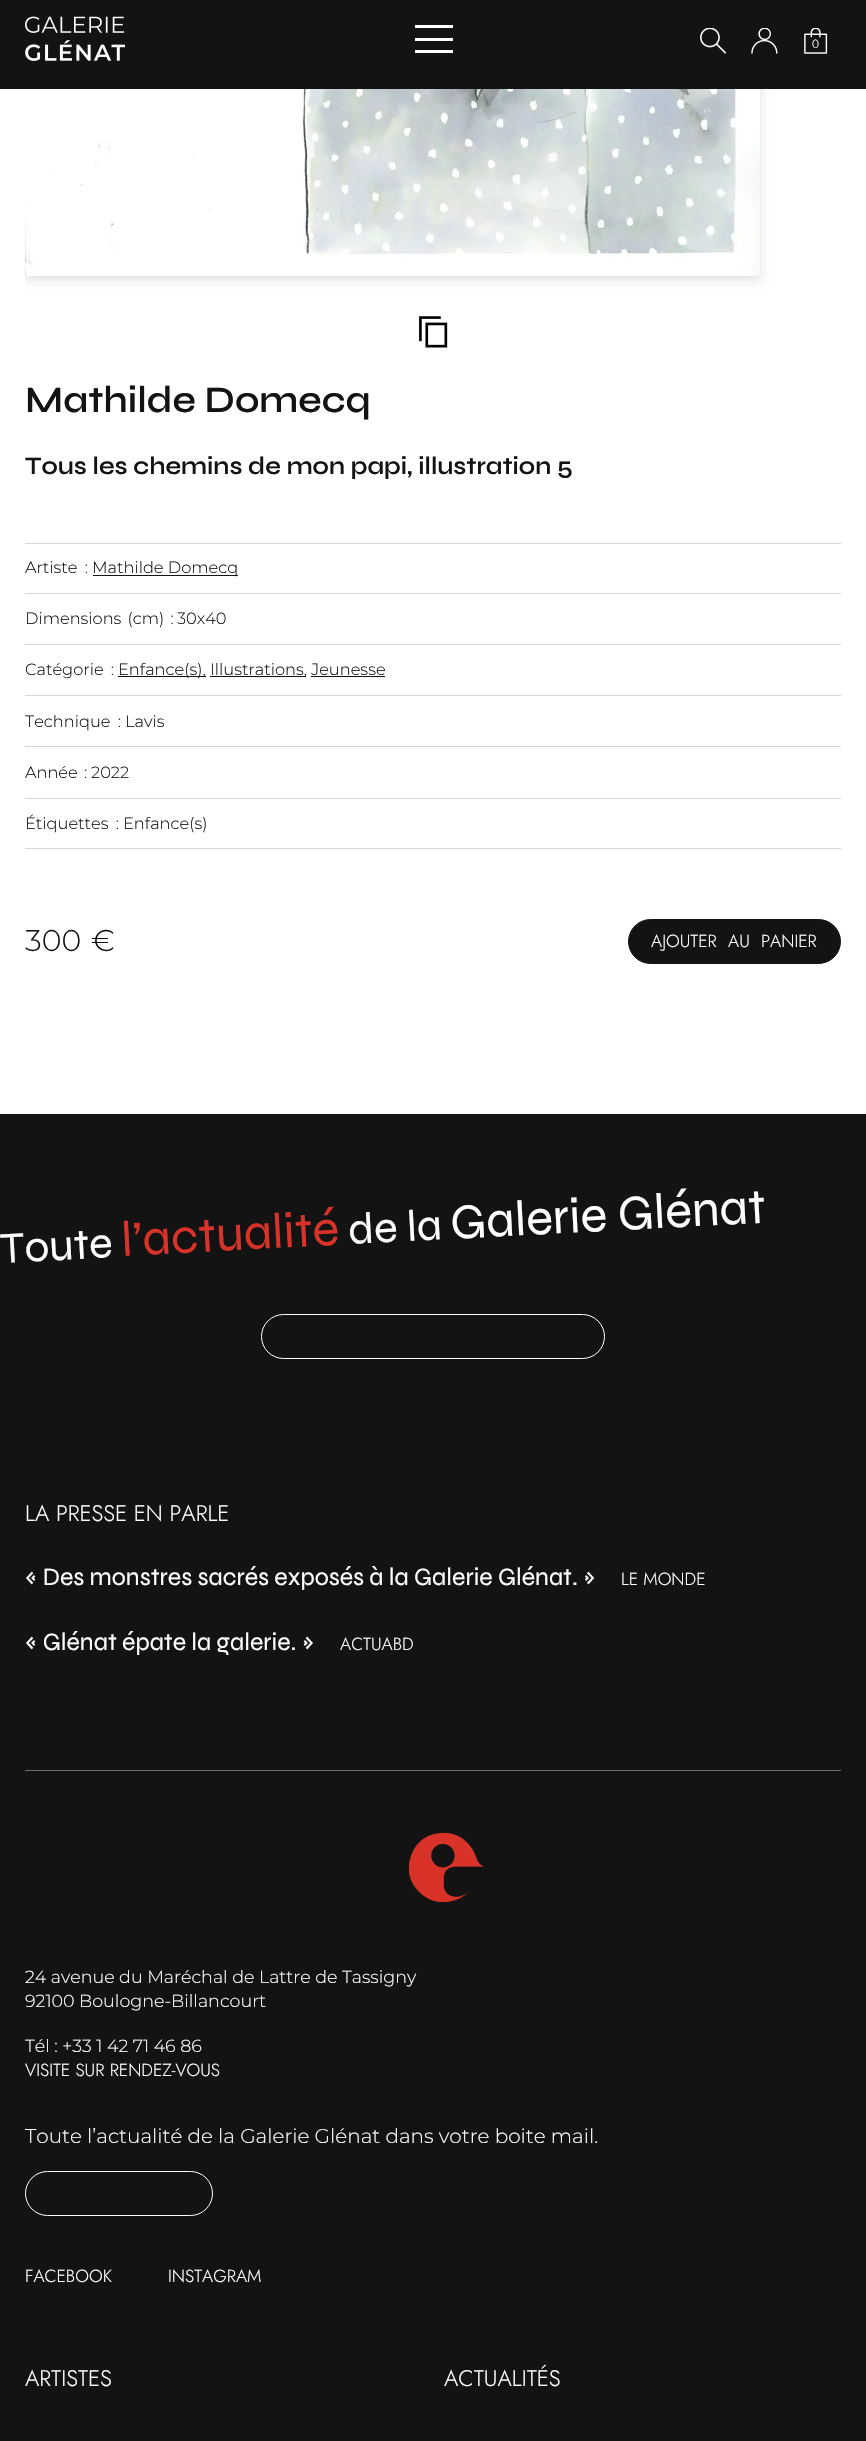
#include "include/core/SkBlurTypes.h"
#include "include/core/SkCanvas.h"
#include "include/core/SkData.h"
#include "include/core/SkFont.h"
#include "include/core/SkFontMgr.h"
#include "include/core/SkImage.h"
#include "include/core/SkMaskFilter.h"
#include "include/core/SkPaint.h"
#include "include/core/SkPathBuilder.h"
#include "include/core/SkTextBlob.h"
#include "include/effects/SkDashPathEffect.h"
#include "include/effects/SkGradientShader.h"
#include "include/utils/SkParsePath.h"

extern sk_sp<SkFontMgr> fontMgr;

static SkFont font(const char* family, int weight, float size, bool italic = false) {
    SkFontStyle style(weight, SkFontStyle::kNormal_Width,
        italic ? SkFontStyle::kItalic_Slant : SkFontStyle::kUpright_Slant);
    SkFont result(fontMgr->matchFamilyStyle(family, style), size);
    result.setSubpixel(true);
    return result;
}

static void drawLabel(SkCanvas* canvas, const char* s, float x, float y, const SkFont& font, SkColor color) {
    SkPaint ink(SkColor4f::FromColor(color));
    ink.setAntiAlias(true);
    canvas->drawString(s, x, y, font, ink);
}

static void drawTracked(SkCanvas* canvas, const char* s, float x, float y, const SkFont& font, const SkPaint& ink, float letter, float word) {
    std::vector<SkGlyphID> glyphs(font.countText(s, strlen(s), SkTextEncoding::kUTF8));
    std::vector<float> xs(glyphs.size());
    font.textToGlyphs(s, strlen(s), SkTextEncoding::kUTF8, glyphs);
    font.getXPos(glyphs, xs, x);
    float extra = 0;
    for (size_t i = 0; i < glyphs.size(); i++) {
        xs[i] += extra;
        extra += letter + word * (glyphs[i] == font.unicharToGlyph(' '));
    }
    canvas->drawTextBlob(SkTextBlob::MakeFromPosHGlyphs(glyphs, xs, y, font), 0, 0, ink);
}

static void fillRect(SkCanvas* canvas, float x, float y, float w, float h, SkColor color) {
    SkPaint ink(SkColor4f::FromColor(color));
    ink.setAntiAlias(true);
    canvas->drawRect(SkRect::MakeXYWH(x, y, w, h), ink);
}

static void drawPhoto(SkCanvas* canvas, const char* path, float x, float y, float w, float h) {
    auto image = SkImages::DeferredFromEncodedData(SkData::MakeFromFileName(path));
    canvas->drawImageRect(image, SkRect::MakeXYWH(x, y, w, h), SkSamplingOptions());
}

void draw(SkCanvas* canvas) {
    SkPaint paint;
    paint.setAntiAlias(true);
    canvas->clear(0xFFFFFFFF);
    canvas->save();
    canvas->clipRect(SkRect::MakeXYWH(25, 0, 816, 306));
    paint.setColor(0x1F000000);
    paint.setMaskFilter(SkMaskFilter::MakeBlur(kNormal_SkBlurStyle, 5));
    canvas->drawRect(SkRect::MakeXYWH(25, -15, 735, 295), paint);
    paint.setMaskFilter(nullptr);
    canvas->restore();
    fillRect(canvas, 0, 0, 866, 89, 0xFF131313);
    drawPhoto(canvas, "assets/img1.png", 25, 16, 100, 45);
    fillRect(canvas, 415, 38, 38, 3, 0xFFFFFFFF);
    fillRect(canvas, 415, 25, 38, 3, 0xFFFFFFFF);
    fillRect(canvas, 415, 50, 38, 3, 0xFFFFFFFF);
    drawPhoto(canvas, "assets/img2.png", 700, 28, 26, 26);
    drawPhoto(canvas, "assets/img3.png", 751, 28, 27, 26);
    drawPhoto(canvas, "assets/img4.png", 804, 28, 24, 26);
    SkFont font1 = font("Jost", 300, 12);
    drawLabel(canvas, "0", 812, 48, font1, 0xFFFFFFFF);
    drawPhoto(canvas, "assets/img5.png", 25, 89, 735, 187);
    drawPhoto(canvas, "assets/img6.png", 419, 316, 29, 32);
    SkFont font2 = font("Syne", 600, 37.5f);
    drawLabel(canvas, "Mathilde Domecq", 25, 412, font2, 0xFF131313);
    SkFont font3 = font("Syne", 600, 25);
    drawLabel(canvas, "Tous les chemins de mon papi, illustration 5", 25, 474, font3, 0xFF131313);
    fillRect(canvas, 25, 543, 816, 1, 0xFFD5D5D5);
    SkFont font4 = font("Montserrat", 300, 16.25f);
    paint.setColor(0xFF131313);
    drawTracked(canvas, "Artiste :", 25, 573, font4, paint, 0, 3);
    fillRect(canvas, 93, 575, 145, 1, 0xFF131313);
    drawLabel(canvas, "Mathilde Domecq", 92, 573, font4, 0xFF131313);
    fillRect(canvas, 25, 593, 816, 1, 0xFFD5D5D5);
    drawTracked(canvas, "Dimensions (cm) :", 25, 624, font4, paint, 0, 2);
    drawLabel(canvas, "30x40", 177, 624, font4, 0xFF131313);
    fillRect(canvas, 25, 644, 816, 1, 0xFFD5D5D5);
    drawTracked(canvas, "Catégorie :", 25, 675, font4, paint, 0, 3);
    fillRect(canvas, 118, 676, 88, 1, 0xFF131313);
    drawLabel(canvas, "Enfance(s),", 118, 675, font4, 0xFF131313);
    fillRect(canvas, 210, 676, 96, 1, 0xFF131313);
    drawLabel(canvas, "Illustrations, Jeunesse", 210, 675, font4, 0xFF131313);
    fillRect(canvas, 311, 676, 74, 1, 0xFF131313);
    fillRect(canvas, 25, 695, 816, 1, 0xFFD5D5D5);
    drawTracked(canvas, "Technique :", 25, 727, font4, paint, 0, 3);
    drawLabel(canvas, "Lavis", 125, 727, font4, 0xFF131313);
    fillRect(canvas, 25, 746, 816, 1, 0xFFD5D5D5);
    drawTracked(canvas, "Année :", 25, 778, font4, paint, 0, 2);
    drawLabel(canvas, "2022", 91, 778, font4, 0xFF131313);
    fillRect(canvas, 25, 798, 816, 1, 0xFFD5D5D5);
    drawTracked(canvas, "Étiquettes :", 25, 829, font4, paint, 0, 3);
    drawLabel(canvas, "Enfance(s)", 123, 829, font4, 0xFF131313);
    fillRect(canvas, 25, 848, 816, 1, 0xFFD5D5D5);
    SkFont font5 = font("Montserrat", 300, 30);
    drawTracked(canvas, "300 €", 25, 951, font5, paint, 0, 2);
    canvas->drawRoundRect(SkRect::MakeXYWH(628.5f, 919.5f, 212, 44), 22, 22, paint);
    paint.setStroke(true);
    paint.setStrokeWidth(1);
    canvas->drawRoundRect(SkRect::MakeXYWH(628.5f, 919.5f, 212, 44), 22, 22, paint);
    SkFont font6 = font("Jost", 300, 17.5f);
    paint.setStroke(false);
    paint.setColor(0xFFFFFFFF);
    drawTracked(canvas, "AJOUTER AU PANIER", 651, 947, font6, paint, 0, 6);
    fillRect(canvas, 0, 1114, 866, 1327, 0xFF131313);
    SkFont font7 = font("Syne", 400, 44);
    canvas->save();
    canvas->rotate(-3, 1, 1263);
    drawLabel(canvas, "Toute", 1, 1263, font7, 0xFFFFFFFF);
    canvas->restore();
    SkFont font8 = font("Syne", 400, 50);
    canvas->save();
    canvas->rotate(-3, 122, 1256);
    drawLabel(canvas, "l’actualité", 122, 1256, font8, 0xFFD93229);
    canvas->restore();
    canvas->save();
    canvas->rotate(-3, 349, 1244);
    drawLabel(canvas, "de la", 349, 1244, font7, 0xFFFFFFFF);
    canvas->restore();
    canvas->save();
    canvas->rotate(-3, 451, 1239);
    drawLabel(canvas, "Galerie Glénat", 451, 1239, font8, 0xFFFFFFFF);
    canvas->restore();
    paint.setStroke(true);
    canvas->drawRoundRect(SkRect::MakeXYWH(261.5f, 1314.5f, 343, 44), 22, 22, paint);
    SkFont font9 = font("Jost", 300, 22.5f);
    drawLabel(canvas, "LA PRESSE EN PARLE", 25, 1521, font9, 0xFFFFFFFF);
    SkFont font10 = font("Syne", 400, 25);
    drawLabel(canvas, "« Des monstres sacrés exposés à la Galerie Glénat. »", 25, 1585, font10, 0xFFFFFFFF);
    drawLabel(canvas, "LE MONDE", 621, 1585, font6, 0xFFFFFFFF);
    drawLabel(canvas, "« Glénat épate la galerie. »", 25, 1650, font10, 0xFFFFFFFF);
    drawLabel(canvas, "ACTUABD", 340, 1650, font6, 0xFFFFFFFF);
    fillRect(canvas, 25, 1770, 816, 1, 0xFF717171);
    drawPhoto(canvas, "assets/img7.png", 409, 1832, 75, 71);
    SkFont font11 = font("Montserrat", 300, 17.5f);
    drawLabel(canvas, "24 avenue du Maréchal de Lattre de Tassigny", 25, 1983, font11, 0xFFFFFFFF);
    drawLabel(canvas, "92100 Boulogne-Billancourt", 25, 2007, font11, 0xFFFFFFFF);
    drawLabel(canvas, "Tél : +33 1 42 71 46 86", 25, 2052, font11, 0xFFFFFFFF);
    drawLabel(canvas, "VISITE SUR RENDEZ-VOUS", 25, 2076, font6, 0xFFFFFFFF);
    SkFont font12 = font("Montserrat", 300, 20);
    drawLabel(canvas, "Toute l’actualité de la Galerie Glénat dans votre boite mail.", 25, 2143, font12, 0xFFFFFFFF);
    canvas->drawRoundRect(SkRect::MakeXYWH(25.5f, 2171.5f, 187, 44), 22, 22, paint);
    drawLabel(canvas, "FACEBOOK", 25, 2282, font6, 0xFFFFFFFF);
    drawLabel(canvas, "INSTAGRAM", 168, 2282, font6, 0xFFFFFFFF);
    drawLabel(canvas, "ARTISTES", 25, 2386, font9, 0xFFFFFFFF);
    drawLabel(canvas, "ACTUALITÉS", 444, 2386, font9, 0xFFFFFFFF);
}
